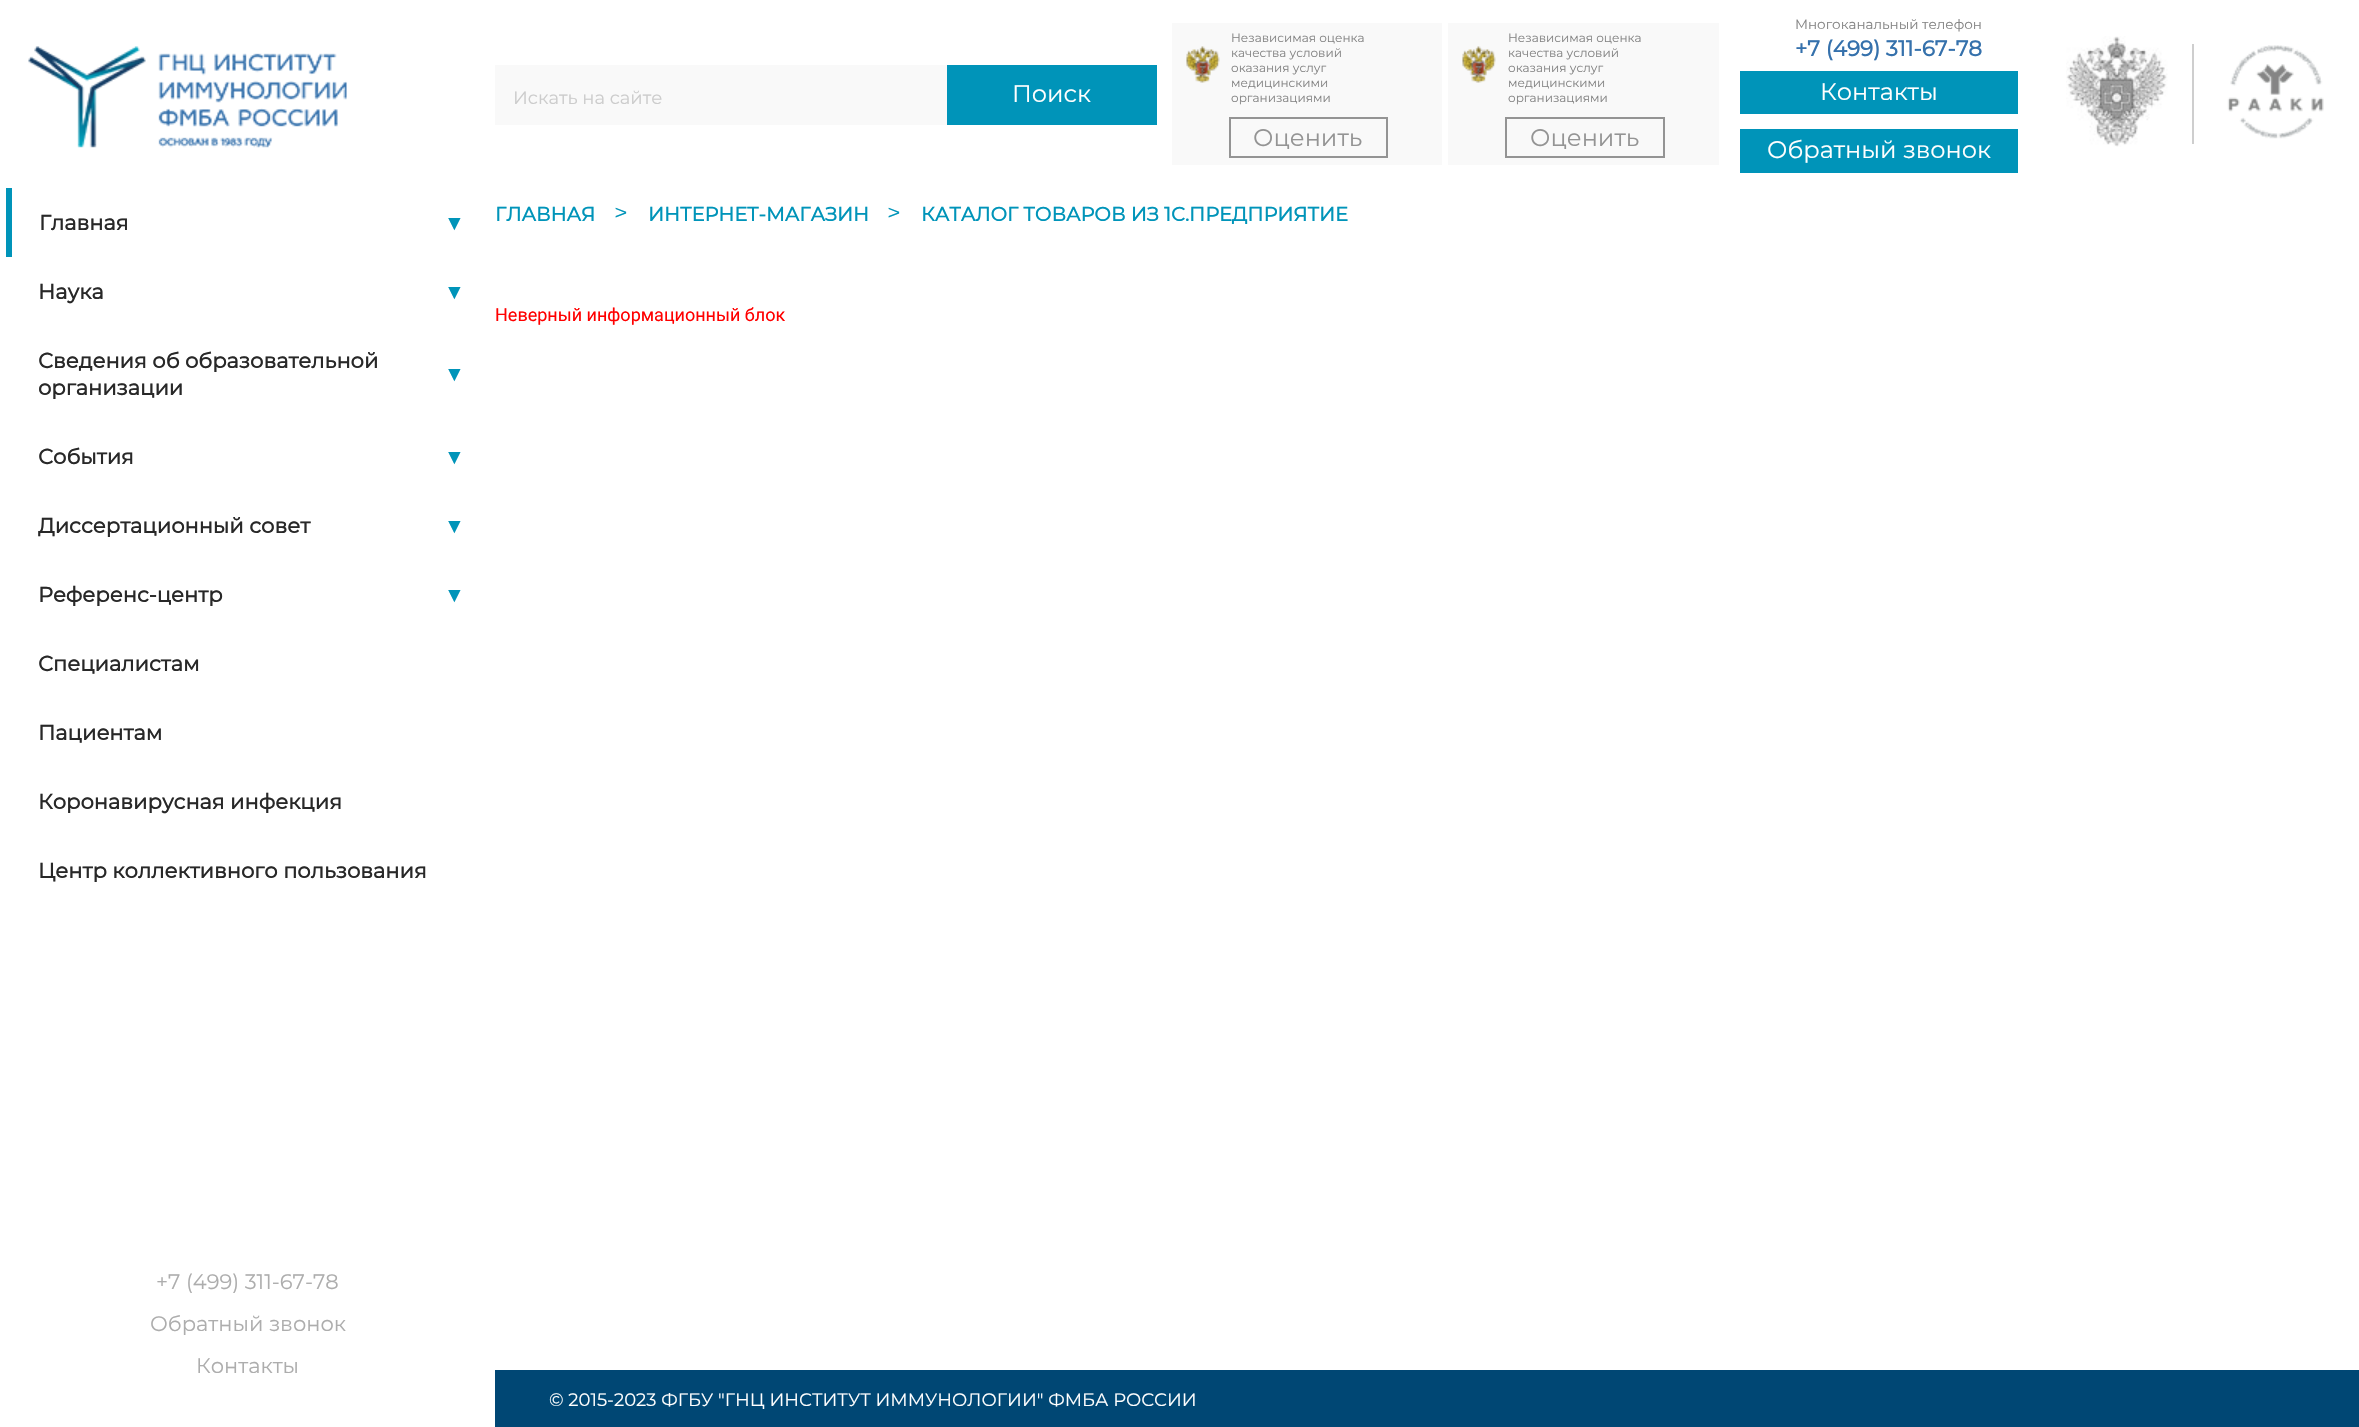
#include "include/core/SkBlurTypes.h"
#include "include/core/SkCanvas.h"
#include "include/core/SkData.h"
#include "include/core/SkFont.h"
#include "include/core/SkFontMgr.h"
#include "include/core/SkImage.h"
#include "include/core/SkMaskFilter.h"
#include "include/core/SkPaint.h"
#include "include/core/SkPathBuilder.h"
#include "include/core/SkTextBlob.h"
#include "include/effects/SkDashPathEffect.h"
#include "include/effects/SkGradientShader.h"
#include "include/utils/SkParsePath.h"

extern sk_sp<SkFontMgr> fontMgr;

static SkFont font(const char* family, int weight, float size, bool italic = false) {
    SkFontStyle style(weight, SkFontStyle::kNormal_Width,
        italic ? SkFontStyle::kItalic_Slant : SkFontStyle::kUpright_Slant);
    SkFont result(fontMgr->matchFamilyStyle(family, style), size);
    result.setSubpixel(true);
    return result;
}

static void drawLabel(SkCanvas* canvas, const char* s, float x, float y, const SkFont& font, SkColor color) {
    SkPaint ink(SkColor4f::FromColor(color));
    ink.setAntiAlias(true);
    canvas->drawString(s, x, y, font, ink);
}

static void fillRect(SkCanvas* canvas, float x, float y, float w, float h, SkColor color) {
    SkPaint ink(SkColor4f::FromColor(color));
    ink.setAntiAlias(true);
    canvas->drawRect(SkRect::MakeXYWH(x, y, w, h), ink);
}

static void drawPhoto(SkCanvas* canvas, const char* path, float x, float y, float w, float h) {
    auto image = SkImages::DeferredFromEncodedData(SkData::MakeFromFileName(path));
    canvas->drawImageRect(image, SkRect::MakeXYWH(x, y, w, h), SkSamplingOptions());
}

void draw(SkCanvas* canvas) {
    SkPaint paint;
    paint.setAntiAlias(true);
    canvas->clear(0xFFFFFFFF);
    drawPhoto(canvas, "assets/img1.png", 28, 46, 319, 102);
    fillRect(canvas, 495, 65, 452, 60, 0xFFF9F9F9);
    SkFont font1 = font("Montserrat", 100, 18);
    drawLabel(canvas, "Искать на сайте", 513, 104, font1, 0xFFCCCCCC);
    fillRect(canvas, 947, 65, 210, 60, 0xFF0094B9);
    SkFont font2 = font("Montserrat", 100, 24);
    drawLabel(canvas, "Поиск", 1012, 102, font2, 0xFFFFFFFF);
    fillRect(canvas, 1172, 23, 270, 142, 0xFFF9F9F9);
    drawPhoto(canvas, "assets/img2.png", 1186, 46, 34, 37);
    SkFont font3 = font("Montserrat", 100, 12);
    drawLabel(canvas, "Независимая оценка", 1231, 42, font3, 0xFF858585);
    drawLabel(canvas, "качества условий", 1231, 57, font3, 0xFF858585);
    drawLabel(canvas, "оказания услуг", 1231, 72, font3, 0xFF858585);
    drawLabel(canvas, "медицинскими", 1231, 87, font3, 0xFF858585);
    drawLabel(canvas, "организациями", 1231, 102, font3, 0xFF858585);
    paint.setStroke(true);
    paint.setStrokeWidth(2);
    paint.setColor(0xFF949494);
    canvas->drawRect(SkRect::MakeXYWH(1230, 118, 157, 39), paint);
    drawLabel(canvas, "Оценить", 1253, 146, font2, 0xFF949494);
    fillRect(canvas, 1448, 23, 271, 142, 0xFFF9F9F9);
    drawPhoto(canvas, "assets/img2.png", 1462, 46, 34, 37);
    drawLabel(canvas, "Независимая оценка", 1508, 42, font3, 0xFF858585);
    drawLabel(canvas, "качества условий", 1508, 57, font3, 0xFF858585);
    drawLabel(canvas, "оказания услуг", 1508, 72, font3, 0xFF858585);
    drawLabel(canvas, "медицинскими", 1508, 87, font3, 0xFF858585);
    drawLabel(canvas, "организациями", 1508, 102, font3, 0xFF858585);
    canvas->drawRect(SkRect::MakeXYWH(1506, 118, 158, 39), paint);
    drawLabel(canvas, "Оценить", 1530, 146, font2, 0xFF949494);
    SkFont font4 = font("Montserrat", 100, 13.5f);
    drawLabel(canvas, "Многоканальный телефон", 1795, 29, font4, 0xFF858585);
    SkFont font5 = font("Montserrat", 700, 21.5f);
    drawLabel(canvas, "+7 (499) 311-67-78", 1795, 56, font5, 0xFF3571AC);
    fillRect(canvas, 1740, 71, 278, 43, 0xFF0094B9);
    drawLabel(canvas, "Контакты", 1820, 100, font2, 0xFFFFFFFF);
    fillRect(canvas, 1740, 129, 278, 44, 0xFF0094B9);
    drawLabel(canvas, "Обратный звонок", 1767, 158, font2, 0xFFFFFFFF);
    drawPhoto(canvas, "assets/img3.png", 2066, 36, 102, 111);
    fillRect(canvas, 2192, 44, 2, 100, 0xFFCECECE);
    drawPhoto(canvas, "assets/img4.png", 2227, 45, 97, 94);
    fillRect(canvas, 6, 188, 6, 69, 0xFF0094B9);
    SkFont font6 = font("Montserrat", 700, 21);
    drawLabel(canvas, "Главная", 39, 230, font6, 0xFF282828);
    SkFont font7 = font("Liberation Sans", 700, 21);
    drawLabel(canvas, "▼", 444, 230, font7, 0xFF0094B9);
    drawLabel(canvas, "Наука", 38, 299, font6, 0xFF282828);
    drawLabel(canvas, "▼", 444, 299, font7, 0xFF0094B9);
    drawLabel(canvas, "Сведения об образовательной", 38, 368, font6, 0xFF282828);
    drawLabel(canvas, "▼", 444, 381, font7, 0xFF0094B9);
    drawLabel(canvas, "организации", 38, 395, font6, 0xFF282828);
    drawLabel(canvas, "События", 38, 464, font6, 0xFF282828);
    drawLabel(canvas, "▼", 444, 464, font7, 0xFF0094B9);
    drawLabel(canvas, "Диссертационный совет", 38, 533, font6, 0xFF282828);
    drawLabel(canvas, "▼", 444, 533, font7, 0xFF0094B9);
    drawLabel(canvas, "Референс-центр", 38, 602, font6, 0xFF282828);
    drawLabel(canvas, "▼", 444, 602, font7, 0xFF0094B9);
    drawLabel(canvas, "Специалистам", 38, 671, font6, 0xFF282828);
    drawLabel(canvas, "Пациентам", 38, 740, font6, 0xFF282828);
    drawLabel(canvas, "Коронавирусная инфекция", 38, 809, font6, 0xFF282828);
    drawLabel(canvas, "Центр коллективного пользования", 38, 878, font6, 0xFF282828);
    SkFont font8 = font("Montserrat", 100, 21);
    drawLabel(canvas, "+7 (499) 311-67-78", 156, 1289, font8, 0xFFADADAD);
    drawLabel(canvas, "Обратный звонок", 150, 1331, font8, 0xFFADADAD);
    drawLabel(canvas, "Контакты", 196, 1373, font8, 0xFFADADAD);
    SkFont font9 = font("Montserrat", 700, 19.5f);
    drawLabel(canvas, "ГЛАВНАЯ", 495, 221, font9, 0xFF0094B9);
    drawLabel(canvas, ">", 614, 221, font2, 0xFF0094B9);
    drawLabel(canvas, "ИНТЕРНЕТ-МАГАЗИН", 648, 221, font9, 0xFF0094B9);
    drawLabel(canvas, ">", 887, 221, font2, 0xFF0094B9);
    drawLabel(canvas, "КАТАЛОГ ТОВАРОВ ИЗ 1С.ПРЕДПРИЯТИЕ", 921, 221, font9, 0xFF0094B9);
    SkFont font10 = font("Roboto", 400, 18);
    drawLabel(canvas, "Неверный информационный блок", 495, 321, font10, 0xFFFF0000);
    fillRect(canvas, 495, 1370, 1864, 57, 0xFF004774);
    drawLabel(canvas, "© 2015-2023 ФГБУ \"ГНЦ ИНСТИТУТ ИММУНОЛОГИИ\" ФМБА РОССИИ", 549, 1406, font1, 0xFFFFFFFF);
}
